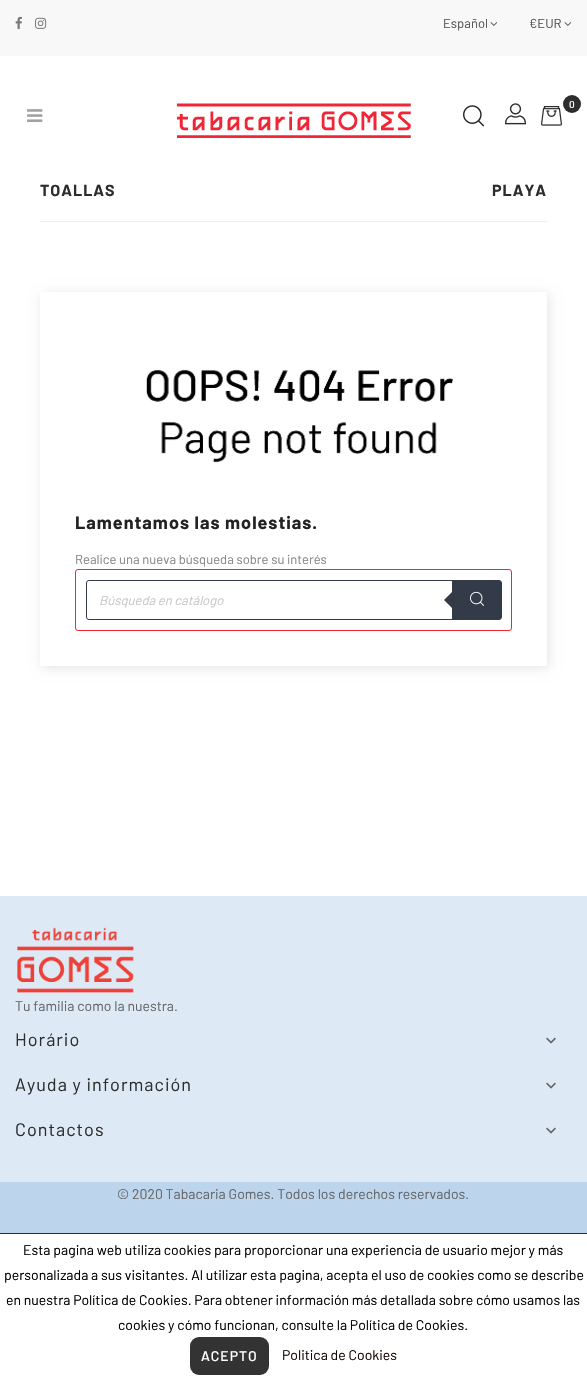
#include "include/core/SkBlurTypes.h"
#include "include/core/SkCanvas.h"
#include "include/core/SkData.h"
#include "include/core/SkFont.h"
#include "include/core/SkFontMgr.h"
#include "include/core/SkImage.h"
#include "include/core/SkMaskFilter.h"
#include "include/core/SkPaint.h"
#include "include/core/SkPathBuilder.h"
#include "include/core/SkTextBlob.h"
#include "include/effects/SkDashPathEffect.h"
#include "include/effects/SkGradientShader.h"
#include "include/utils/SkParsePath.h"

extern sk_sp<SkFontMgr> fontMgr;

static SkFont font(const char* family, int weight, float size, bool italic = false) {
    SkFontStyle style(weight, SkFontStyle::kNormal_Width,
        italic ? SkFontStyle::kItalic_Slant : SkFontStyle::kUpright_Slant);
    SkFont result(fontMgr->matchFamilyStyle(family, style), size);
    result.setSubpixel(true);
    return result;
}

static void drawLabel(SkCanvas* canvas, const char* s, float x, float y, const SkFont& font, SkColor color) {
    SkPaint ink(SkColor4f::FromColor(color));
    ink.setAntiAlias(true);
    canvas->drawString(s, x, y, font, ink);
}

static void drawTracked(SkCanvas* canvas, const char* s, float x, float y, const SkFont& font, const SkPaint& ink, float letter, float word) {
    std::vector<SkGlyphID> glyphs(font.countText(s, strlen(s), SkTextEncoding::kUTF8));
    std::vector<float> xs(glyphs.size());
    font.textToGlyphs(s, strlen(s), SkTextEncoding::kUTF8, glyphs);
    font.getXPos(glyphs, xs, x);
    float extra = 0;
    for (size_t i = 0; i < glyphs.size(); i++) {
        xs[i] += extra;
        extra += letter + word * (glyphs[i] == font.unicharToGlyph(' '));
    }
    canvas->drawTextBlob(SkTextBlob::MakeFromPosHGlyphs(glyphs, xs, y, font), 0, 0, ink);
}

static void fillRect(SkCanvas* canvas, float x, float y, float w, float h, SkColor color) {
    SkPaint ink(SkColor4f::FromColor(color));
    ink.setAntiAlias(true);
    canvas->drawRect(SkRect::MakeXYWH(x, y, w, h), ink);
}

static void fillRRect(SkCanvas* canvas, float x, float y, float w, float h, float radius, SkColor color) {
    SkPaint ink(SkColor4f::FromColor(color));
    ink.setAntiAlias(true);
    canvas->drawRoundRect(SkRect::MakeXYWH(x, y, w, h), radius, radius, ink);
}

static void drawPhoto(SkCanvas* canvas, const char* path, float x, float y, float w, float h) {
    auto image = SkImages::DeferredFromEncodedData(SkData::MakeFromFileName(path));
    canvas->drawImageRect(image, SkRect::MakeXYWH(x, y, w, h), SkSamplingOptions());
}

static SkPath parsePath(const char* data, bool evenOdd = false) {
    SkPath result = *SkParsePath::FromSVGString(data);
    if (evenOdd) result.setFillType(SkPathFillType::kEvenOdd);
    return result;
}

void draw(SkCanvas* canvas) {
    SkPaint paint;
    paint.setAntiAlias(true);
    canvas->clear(0xFFFFFFFF);
    fillRect(canvas, 0, 0, 587, 56, 0xFFF8F8F8);
    drawPhoto(canvas, "assets/img1.png", 15, 16, 7, 13);
    drawPhoto(canvas, "assets/img2.png", 35, 17, 12, 12);
    SkFont font1 = font("Barlow", 400, 13);
    drawLabel(canvas, "Español", 443, 28, font1, 0xFF555555);
    drawPhoto(canvas, "assets/img3.png", 490, 22, 8, 4);
    drawLabel(canvas, "€EUR", 529, 28, font1, 0xFF555555);
    drawPhoto(canvas, "assets/img3.png", 564, 22, 8, 4);
    drawPhoto(canvas, "assets/img4.png", 27, 109, 16, 13);
    drawPhoto(canvas, "assets/img5.png", 177, 103, 234, 35);
    drawPhoto(canvas, "assets/img6.png", 463, 105, 22, 22);
    drawPhoto(canvas, "assets/img7.png", 505, 103, 21, 22);
    paint.setColor(0xFF2D2D2D);
    canvas->drawCircle(572, 104, 9, paint);
    SkFont font2 = font("Barlow", 500, 10);
    drawLabel(canvas, "0", 569, 108, font2, 0xFFFFFFFF);
    drawPhoto(canvas, "assets/img8.png", 541, 106, 21, 20);
    fillRect(canvas, 40, 221, 507, 1, 0xFFEEEEEE);
    SkFont font3 = font("Barlow", 700, 16);
    drawTracked(canvas, "TOALLAS", 40, 196, font3, paint, 1, 0);
    drawTracked(canvas, "PLAYA", 492, 196, font3, paint, 1, 0);
    canvas->save();
    canvas->clipPath(parsePath("M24 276H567V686H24ZM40 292H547V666H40Z", true), true);
    paint.setColor(0x1A000000);
    paint.setMaskFilter(SkMaskFilter::MakeBlur(kNormal_SkBlurStyle, 5.5f));
    canvas->drawRect(SkRect::MakeXYWH(42, 294, 507, 374), paint);
    paint.setMaskFilter(nullptr);
    canvas->restore();
    drawPhoto(canvas, "assets/img9.png", 146, 369, 307, 94);
    SkFont font4 = font("Barlow", 700, 18);
    paint.setColor(0xFF222222);
    drawTracked(canvas, "Lamentamos las molestias.", 75, 529, font4, paint, 1, 0);
    drawLabel(canvas, "Realice una nueva búsqueda sobre su interés", 75, 564, font1, 0xFF878787);
    paint.setStroke(true);
    paint.setStrokeWidth(1);
    paint.setColor(0xFFEE2737);
    canvas->drawRoundRect(SkRect::MakeXYWH(75.5f, 569.5f, 436, 61), 2.5f, 2.5f, paint);
    paint.setColor(0xFF333B48);
    canvas->drawRoundRect(SkRect::MakeXYWH(86.5f, 580.5f, 414, 39), 2.5f, 2.5f, paint);
    SkFont font5 = font("Barlow", 400, 13, true);
    drawLabel(canvas, "Búsqueda en catálogo", 99, 605, font5, 0xFFC8C8C8);
    paint.setStroke(false);
    canvas->drawPath(parsePath("M452 580H499C500.5 580 502 581.5 502 583V617C502 618.5 500.5 620 499 620H452Z"), paint);
    canvas->drawPath(parsePath("M452 592V608L444 600Z"), paint);
    drawPhoto(canvas, "assets/img10.png", 470, 591, 15, 15);
    fillRect(canvas, 0, 896, 587, 286, 0xFFDDEAF6);
    drawPhoto(canvas, "assets/img11.png", 17, 927, 117, 66);
    SkFont font6 = font("Barlow", 400, 14);
    drawLabel(canvas, "Tu familia como la nuestra.", 15, 1011, font6, 0xFF666666);
    SkFont font7 = font("Barlow", 400, 18);
    paint.setColor(0xFF2D2D2D);
    drawTracked(canvas, "Horário", 15, 1046, font7, paint, 1, 0);
    drawPhoto(canvas, "assets/img12.png", 546, 1037, 10, 7);
    drawTracked(canvas, "Ayuda y información", 15, 1091, font7, paint, 1, 0);
    drawPhoto(canvas, "assets/img12.png", 546, 1082, 10, 7);
    drawTracked(canvas, "Contactos", 15, 1136, font7, paint, 1, 0);
    drawPhoto(canvas, "assets/img12.png", 546, 1127, 10, 7);
    fillRect(canvas, 0, 1182, 587, 51, 0xFFBCD5ED);
    drawLabel(canvas, "© 2020 Tabacaria Gomes. Todos los derechos reservados.", 117, 1199, font6, 0xFF666666);
    fillRect(canvas, 0, 1233, 587, 1, 0xFF2D2D2D);
    drawLabel(canvas, "Esta pagina web utiliza cookies para proporcionar una experiencia de usuario mejor y más", 23, 1255, font6, 0xFF000000);
    drawLabel(canvas, "personalizada a sus visitantes. Al utilizar esta pagina, acepta el uso de cookies como se describe", 4, 1280, font6, 0xFF000000);
    drawLabel(canvas, "en nuestra Política de Cookies. Para obtener información más detallada sobre cómo usamos las", 6, 1305, font6, 0xFF000000);
    drawLabel(canvas, "cookies y cómo funcionan, consulte la Política de Cookies.", 118, 1330, font6, 0xFF000000);
    fillRRect(canvas, 190, 1337, 79, 38, 9, 0xFF333333);
    SkFont font8 = font("Barlow", 500, 14);
    paint.setColor(0xFFFFFFFF);
    drawTracked(canvas, "ACEPTO", 201, 1361, font8, paint, 1, 0);
    drawLabel(canvas, "Politica de Cookies", 282, 1360, font6, 0xFF140805);
}
